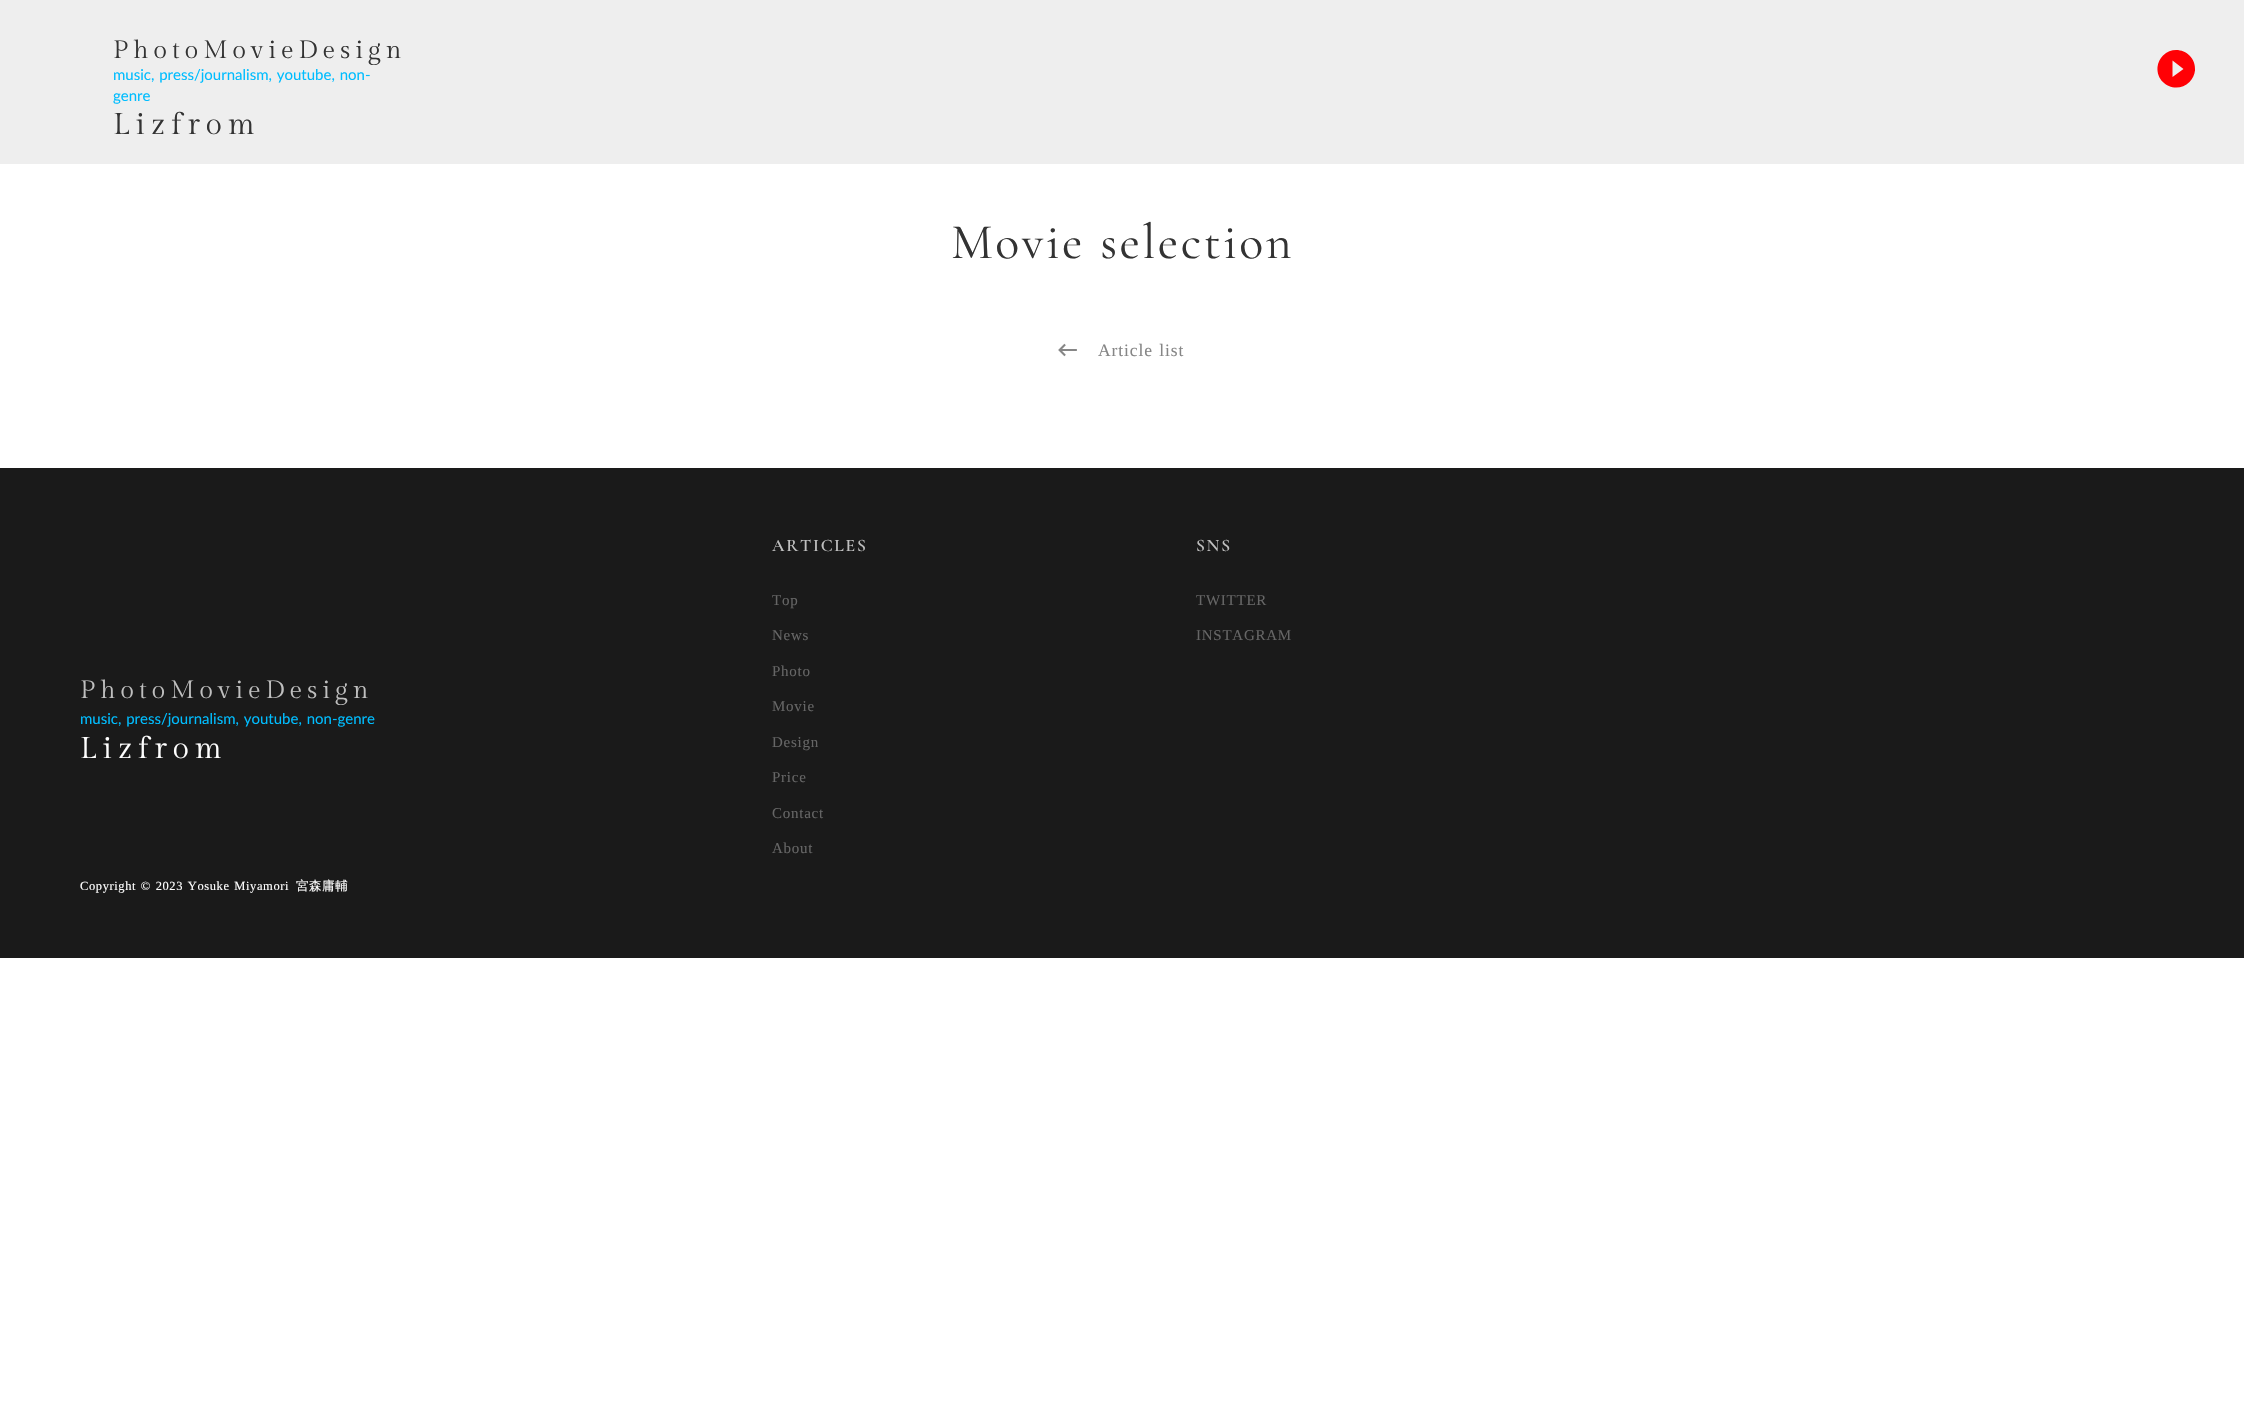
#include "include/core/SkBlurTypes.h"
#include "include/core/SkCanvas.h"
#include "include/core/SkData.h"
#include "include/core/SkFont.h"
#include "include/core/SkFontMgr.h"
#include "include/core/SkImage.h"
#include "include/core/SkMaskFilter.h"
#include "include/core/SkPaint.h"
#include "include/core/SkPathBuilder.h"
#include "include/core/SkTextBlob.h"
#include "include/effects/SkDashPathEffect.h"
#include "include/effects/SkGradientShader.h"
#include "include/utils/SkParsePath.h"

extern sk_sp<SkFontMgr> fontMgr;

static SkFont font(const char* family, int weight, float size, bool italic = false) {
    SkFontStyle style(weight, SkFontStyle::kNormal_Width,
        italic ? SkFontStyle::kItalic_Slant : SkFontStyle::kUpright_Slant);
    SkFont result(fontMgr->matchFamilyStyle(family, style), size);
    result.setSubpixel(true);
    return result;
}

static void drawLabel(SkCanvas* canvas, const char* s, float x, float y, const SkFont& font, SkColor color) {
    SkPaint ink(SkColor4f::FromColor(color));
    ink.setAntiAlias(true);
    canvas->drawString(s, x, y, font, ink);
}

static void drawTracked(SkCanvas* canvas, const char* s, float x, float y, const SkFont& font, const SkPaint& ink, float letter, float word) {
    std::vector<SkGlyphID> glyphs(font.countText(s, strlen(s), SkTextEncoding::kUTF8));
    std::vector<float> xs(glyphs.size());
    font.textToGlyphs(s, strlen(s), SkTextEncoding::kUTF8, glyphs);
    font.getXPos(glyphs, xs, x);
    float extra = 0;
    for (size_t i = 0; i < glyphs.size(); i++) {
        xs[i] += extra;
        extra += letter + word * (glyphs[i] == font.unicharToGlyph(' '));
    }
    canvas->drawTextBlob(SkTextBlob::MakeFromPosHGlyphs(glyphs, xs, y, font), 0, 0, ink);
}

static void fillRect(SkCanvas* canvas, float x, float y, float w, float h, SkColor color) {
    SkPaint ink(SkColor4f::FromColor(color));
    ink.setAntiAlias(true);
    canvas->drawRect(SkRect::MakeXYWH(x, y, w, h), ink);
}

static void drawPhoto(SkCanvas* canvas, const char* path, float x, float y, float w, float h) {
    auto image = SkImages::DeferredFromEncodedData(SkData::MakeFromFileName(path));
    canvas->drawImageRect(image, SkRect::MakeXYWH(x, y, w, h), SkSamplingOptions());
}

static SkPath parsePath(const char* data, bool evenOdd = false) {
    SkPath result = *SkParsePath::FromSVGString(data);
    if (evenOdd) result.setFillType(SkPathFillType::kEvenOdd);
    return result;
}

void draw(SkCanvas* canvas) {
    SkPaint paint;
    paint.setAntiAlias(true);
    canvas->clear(0xFFFFFFFF);
    fillRect(canvas, 0, 0, 2244, 164, 0xFFEEEEEE);
    SkFont font1 = font("Gilda Display", 400, 25);
    paint.setColor(0xFF333333);
    drawTracked(canvas, "PhotoMovieDesign", 113, 58, font1, paint, 5, 0);
    paint.setColor(0xFFFF0005);
    canvas->drawPath(parsePath("M2172.5 77L2183.5 69L2172.5 60.5ZM2163 55.5C2175.5 43 2196.5 53 2195 70.5C2194.5 75 2192.5 79 2189.5 82C2177 94.5 2156 84.5 2157.5 67C2158 62.5 2160 58.5 2163 55.5Z"), paint);
    SkFont font2 = font("Lato", 400, 15);
    paint.setColor(0xFF00BDFF);
    drawTracked(canvas, "music, press/journalism, youtube, non-", 113, 80, font2, paint, 0, 1);
    drawLabel(canvas, "genre", 113, 101, font2, 0xFF00BDFF);
    SkFont font3 = font("Gilda Display", 400, 30);
    paint.setColor(0xFF333333);
    drawTracked(canvas, "Lizfrom", 113, 134, font3, paint, 6, 0);
    SkFont font4 = font("Cormorant Garamond", 400, 50);
    drawTracked(canvas, "Movie selection", 951, 258, font4, paint, 2.5f, 1);
    drawPhoto(canvas, "assets/img1.png", 1058, 343, 19, 14);
    SkFont font5 = font("Liberation Serif", 400, 17.5f);
    paint.setColor(0xFF868686);
    drawTracked(canvas, "Article list", 1098, 356, font5, paint, 0.9f, 1);
    fillRect(canvas, 0, 468, 2244, 490, 0xFF1A1A1A);
    paint.setColor(0xFFBFBFBF);
    drawTracked(canvas, "PhotoMovieDesign", 80, 698, font1, paint, 5, 0);
    paint.setColor(0xFF00BDFF);
    drawTracked(canvas, "music, press/journalism, youtube, non-genre", 80, 724, font2, paint, 0, 1);
    paint.setColor(0xFFFFFFFF);
    drawTracked(canvas, "Lizfrom", 80, 758, font3, paint, 6, 0);
    SkFont font6 = font("Liberation Serif", 400, 12.5f);
    drawTracked(canvas, "Copyright © 2023 Yosuke Miyamori", 80, 890, font6, paint, 0.6f, 1);
    SkFont font7 = font("WenQuanYi Zen Hei", 500, 12.5f);
    drawTracked(canvas, "宮森庸輔", 296, 890, font7, paint, 0.6f, 0);
    SkFont font8 = font("Cormorant Garamond", 600, 17.5f);
    paint.setColor(0xFFBFBFBF);
    drawTracked(canvas, "ARTICLES", 772, 551, font8, paint, 1.75f, 0);
    SkFont font9 = font("Liberation Serif", 400, 15);
    paint.setColor(0xFF666666);
    drawTracked(canvas, "Top", 772, 605, font9, paint, 0.75f, 0);
    drawTracked(canvas, "News", 772, 640, font9, paint, 0.75f, 0);
    drawTracked(canvas, "Photo", 772, 676, font9, paint, 0.75f, 0);
    drawTracked(canvas, "Movie", 772, 711, font9, paint, 0.75f, 0);
    drawTracked(canvas, "Design", 772, 747, font9, paint, 0.75f, 0);
    drawTracked(canvas, "Price", 772, 782, font9, paint, 0.75f, 0);
    drawTracked(canvas, "Contact", 772, 818, font9, paint, 0.75f, 0);
    drawTracked(canvas, "About", 772, 853, font9, paint, 0.75f, 0);
    paint.setColor(0xFFBFBFBF);
    drawTracked(canvas, "SNS", 1196, 551, font8, paint, 1.75f, 0);
    paint.setColor(0xFF666666);
    drawTracked(canvas, "TWITTER", 1196, 605, font9, paint, 0.75f, 0);
    drawTracked(canvas, "INSTAGRAM", 1196, 640, font9, paint, 0.75f, 0);
}
